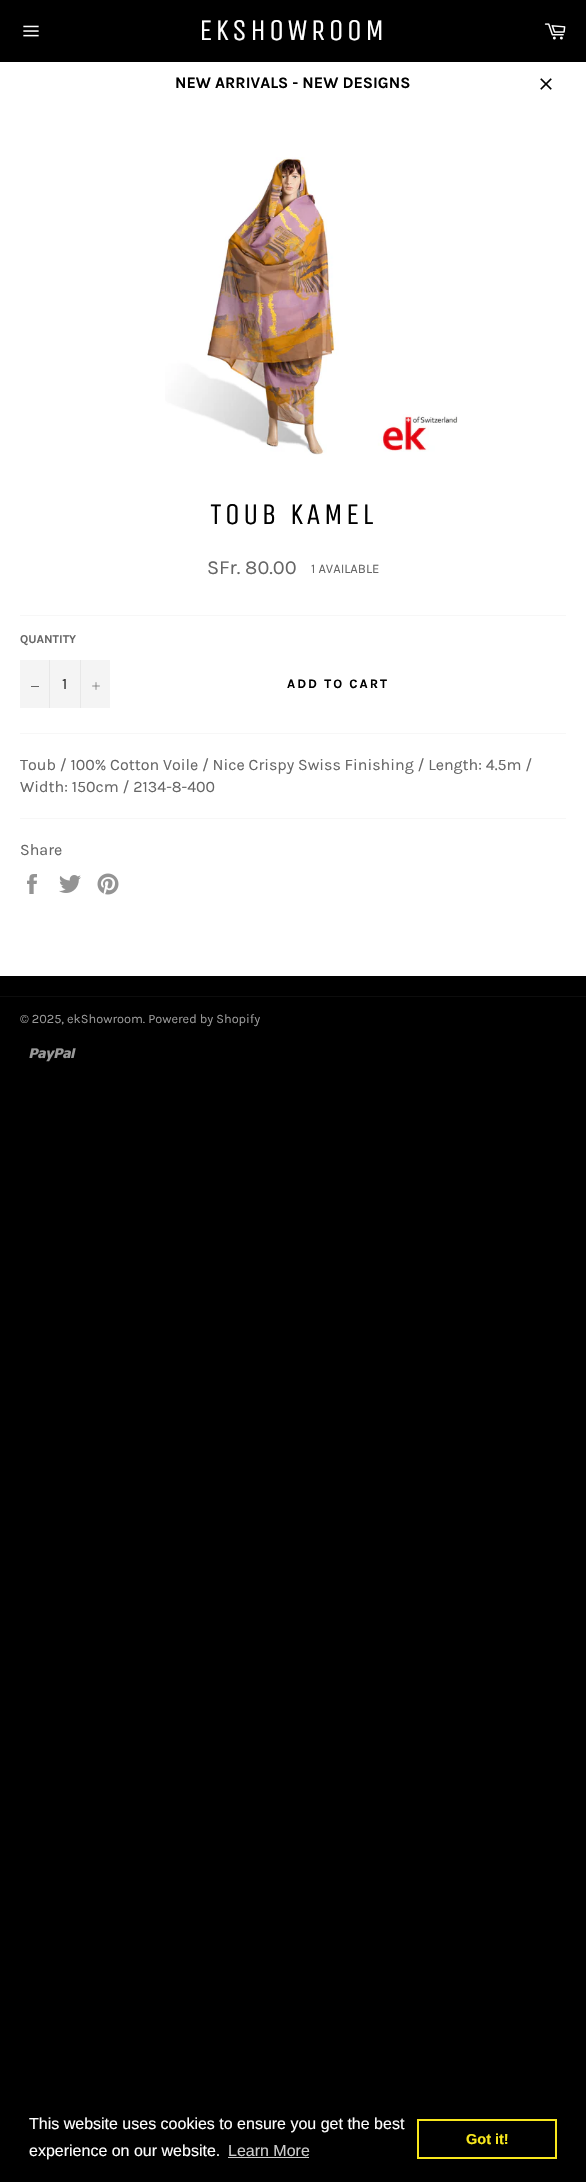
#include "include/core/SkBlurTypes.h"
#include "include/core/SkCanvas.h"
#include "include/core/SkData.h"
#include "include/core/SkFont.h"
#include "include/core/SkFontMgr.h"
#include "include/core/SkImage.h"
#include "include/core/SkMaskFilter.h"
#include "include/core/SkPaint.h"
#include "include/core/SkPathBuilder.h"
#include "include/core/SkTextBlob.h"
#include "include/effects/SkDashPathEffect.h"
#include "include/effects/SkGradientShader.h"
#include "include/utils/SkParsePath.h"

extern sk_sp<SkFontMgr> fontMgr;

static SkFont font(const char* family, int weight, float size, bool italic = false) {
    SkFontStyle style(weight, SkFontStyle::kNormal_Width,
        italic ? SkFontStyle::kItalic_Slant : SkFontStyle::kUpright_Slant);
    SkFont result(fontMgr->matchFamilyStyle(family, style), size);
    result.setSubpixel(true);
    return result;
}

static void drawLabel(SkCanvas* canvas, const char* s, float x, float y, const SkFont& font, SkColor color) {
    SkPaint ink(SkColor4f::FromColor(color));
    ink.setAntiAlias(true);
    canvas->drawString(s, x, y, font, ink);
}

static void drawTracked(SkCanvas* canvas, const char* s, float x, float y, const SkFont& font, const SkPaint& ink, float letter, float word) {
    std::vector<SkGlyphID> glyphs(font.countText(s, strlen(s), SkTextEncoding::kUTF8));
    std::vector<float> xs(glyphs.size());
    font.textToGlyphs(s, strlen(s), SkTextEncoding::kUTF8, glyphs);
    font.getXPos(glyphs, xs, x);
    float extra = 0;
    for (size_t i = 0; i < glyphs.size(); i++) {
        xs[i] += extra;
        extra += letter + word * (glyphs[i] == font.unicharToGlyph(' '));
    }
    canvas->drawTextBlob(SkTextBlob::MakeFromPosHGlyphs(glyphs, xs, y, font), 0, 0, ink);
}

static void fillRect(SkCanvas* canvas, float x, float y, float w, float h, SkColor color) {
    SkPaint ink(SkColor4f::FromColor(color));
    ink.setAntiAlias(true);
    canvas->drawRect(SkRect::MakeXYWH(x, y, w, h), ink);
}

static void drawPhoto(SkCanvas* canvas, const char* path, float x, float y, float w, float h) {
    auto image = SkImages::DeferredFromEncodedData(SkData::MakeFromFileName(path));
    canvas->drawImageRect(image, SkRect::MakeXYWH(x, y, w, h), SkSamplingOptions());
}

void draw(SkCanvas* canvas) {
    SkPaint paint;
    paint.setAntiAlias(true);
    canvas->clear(0xFF000000);
    drawPhoto(canvas, "assets/img1.png", 23, 25, 16, 12);
    SkFont font1 = font("Unica One", 400, 30);
    paint.setColor(0xFFFFFFFF);
    drawTracked(canvas, "EKSHOWROOM", 199, 40, font1, paint, 3, 0);
    drawPhoto(canvas, "assets/img2.png", 544, 23, 22, 17);
    fillRect(canvas, 0, 62, 586, 914, 0xFFFFFFFF);
    SkFont font2 = font("Karla", 700, 16);
    drawLabel(canvas, "NEW ARRIVALS - NEW DESIGNS", 175, 88, font2, 0xFF000000);
    drawPhoto(canvas, "assets/img3.png", 540, 78, 12, 12);
    drawPhoto(canvas, "assets/img4.png", 165, 157, 293, 298);
    paint.setColor(0xFF000000);
    drawTracked(canvas, "TOUB KAMEL", 210, 524, font1, paint, 3, 0);
    SkFont font3 = font("Karla", 400, 20);
    drawLabel(canvas, "SFr. 80.00", 207, 574, font3, 0xFF666666);
    SkFont font4 = font("Karla", 400, 13);
    drawLabel(canvas, "1 AVAILABLE", 311, 573, font4, 0xFF666666);
    fillRect(canvas, 20, 615, 546, 1, 0xFFF7F7F7);
    SkFont font5 = font("Karla", 700, 12);
    drawLabel(canvas, "QUANTITY", 20, 643, font5, 0xFF666666);
    fillRect(canvas, 20, 660, 90, 48, 0xFFF4F4F4);
    fillRect(canvas, 49, 660, 1, 48, 0xFFE7E7E7);
    fillRect(canvas, 31, 686, 8, 1, 0xFF666666);
    SkFont font6 = font("Karla", 400, 16);
    drawLabel(canvas, "1", 62, 689, font6, 0xFF333333);
    fillRect(canvas, 80, 660, 1, 48, 0xFFE7E7E7);
    drawPhoto(canvas, "assets/img5.png", 92, 682, 8, 8);
    SkFont font7 = font("Karla", 700, 13);
    drawTracked(canvas, "ADD TO CART", 287, 688, font7, paint, 2, 0);
    fillRect(canvas, 20, 733, 546, 1, 0xFFF7F7F7);
    drawLabel(canvas, "Toub / 100% Cotton Voile / Nice Crispy Swiss Finishing / Length: 4.5m /", 20, 770, font6, 0xFF666666);
    drawLabel(canvas, "Width: 150cm / 2134-8-400", 20, 792, font6, 0xFF666666);
    fillRect(canvas, 20, 818, 546, 1, 0xFFF7F7F7);
    drawLabel(canvas, "Share", 20, 855, font6, 0xFF666666);
    drawPhoto(canvas, "assets/img6.png", 27, 874, 10, 20);
    drawPhoto(canvas, "assets/img7.png", 59, 875, 22, 18);
    drawPhoto(canvas, "assets/img8.png", 97, 873, 22, 22);
    fillRect(canvas, 0, 996, 586, 1, 0xFF0D0D0D);
    SkFont font8 = font("Karla", 400, 12.75f);
    drawLabel(canvas, "© 2025, ekShowroom. Powered by Shopify", 20, 1023, font8, 0xFF999999);
    drawPhoto(canvas, "assets/img9.png", 29, 1048, 47, 14);
    SkFont font9 = font("Liberation Sans", 400, 16);
    drawLabel(canvas, "This website uses cookies to ensure you get the best", 29, 2129, font9, 0xFFFFFFFF);
    drawLabel(canvas, "experience on our website.", 29, 2156, font9, 0xFFFFFFFF);
    drawLabel(canvas, "Learn More", 228, 2156, font9, 0xFFCCCCCC);
    fillRect(canvas, 228, 2157, 81, 1, 0xFFCCCCCC);
    paint.setStroke(true);
    paint.setStrokeWidth(2);
    paint.setColor(0xFFF8E71C);
    canvas->drawRect(SkRect::MakeXYWH(418, 2120, 138, 38), paint);
    SkFont font10 = font("Liberation Sans", 700, 14.5f);
    drawLabel(canvas, "Got it!", 466, 2144, font10, 0xFFF8E71C);
}
